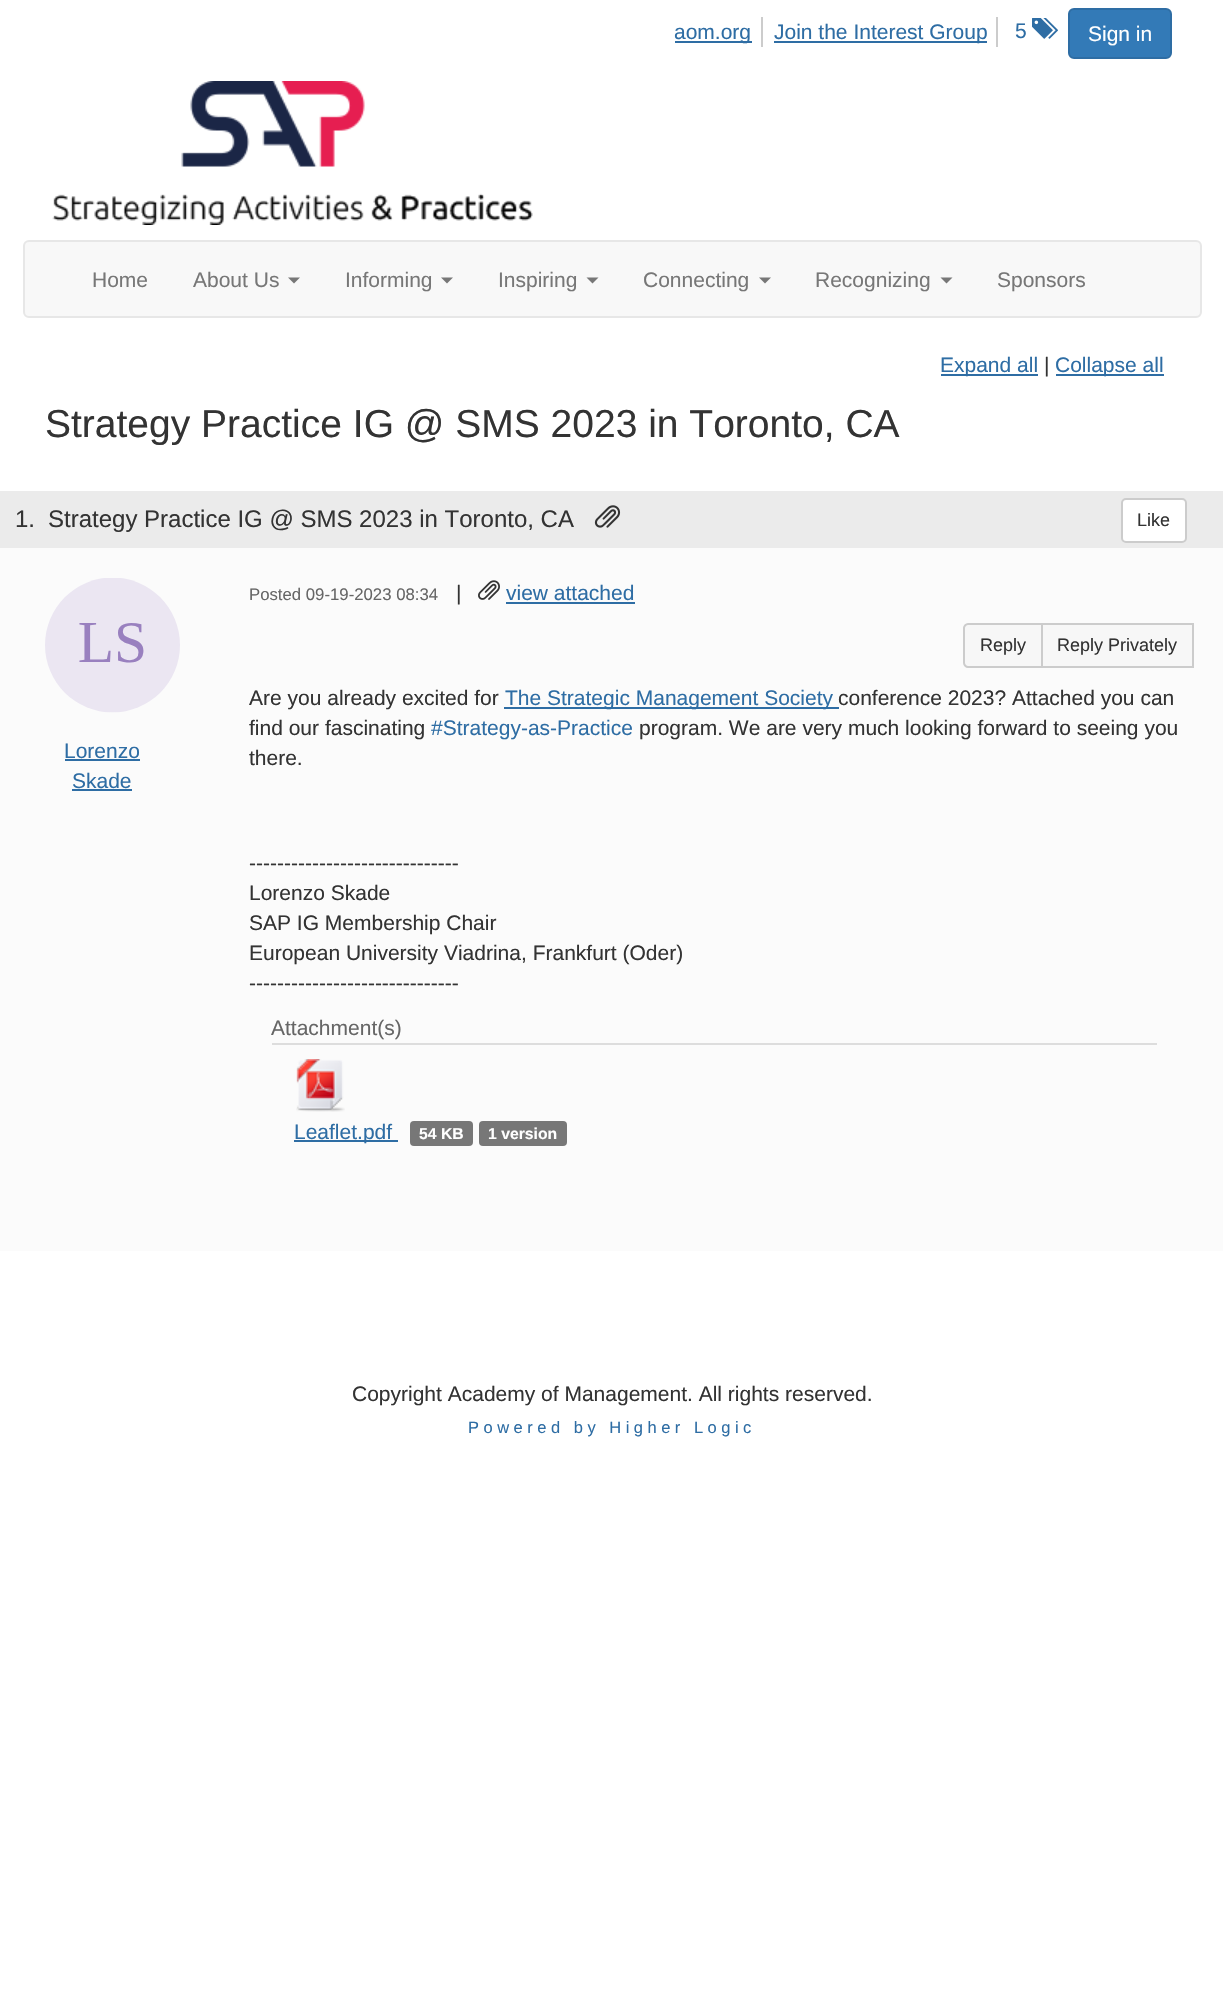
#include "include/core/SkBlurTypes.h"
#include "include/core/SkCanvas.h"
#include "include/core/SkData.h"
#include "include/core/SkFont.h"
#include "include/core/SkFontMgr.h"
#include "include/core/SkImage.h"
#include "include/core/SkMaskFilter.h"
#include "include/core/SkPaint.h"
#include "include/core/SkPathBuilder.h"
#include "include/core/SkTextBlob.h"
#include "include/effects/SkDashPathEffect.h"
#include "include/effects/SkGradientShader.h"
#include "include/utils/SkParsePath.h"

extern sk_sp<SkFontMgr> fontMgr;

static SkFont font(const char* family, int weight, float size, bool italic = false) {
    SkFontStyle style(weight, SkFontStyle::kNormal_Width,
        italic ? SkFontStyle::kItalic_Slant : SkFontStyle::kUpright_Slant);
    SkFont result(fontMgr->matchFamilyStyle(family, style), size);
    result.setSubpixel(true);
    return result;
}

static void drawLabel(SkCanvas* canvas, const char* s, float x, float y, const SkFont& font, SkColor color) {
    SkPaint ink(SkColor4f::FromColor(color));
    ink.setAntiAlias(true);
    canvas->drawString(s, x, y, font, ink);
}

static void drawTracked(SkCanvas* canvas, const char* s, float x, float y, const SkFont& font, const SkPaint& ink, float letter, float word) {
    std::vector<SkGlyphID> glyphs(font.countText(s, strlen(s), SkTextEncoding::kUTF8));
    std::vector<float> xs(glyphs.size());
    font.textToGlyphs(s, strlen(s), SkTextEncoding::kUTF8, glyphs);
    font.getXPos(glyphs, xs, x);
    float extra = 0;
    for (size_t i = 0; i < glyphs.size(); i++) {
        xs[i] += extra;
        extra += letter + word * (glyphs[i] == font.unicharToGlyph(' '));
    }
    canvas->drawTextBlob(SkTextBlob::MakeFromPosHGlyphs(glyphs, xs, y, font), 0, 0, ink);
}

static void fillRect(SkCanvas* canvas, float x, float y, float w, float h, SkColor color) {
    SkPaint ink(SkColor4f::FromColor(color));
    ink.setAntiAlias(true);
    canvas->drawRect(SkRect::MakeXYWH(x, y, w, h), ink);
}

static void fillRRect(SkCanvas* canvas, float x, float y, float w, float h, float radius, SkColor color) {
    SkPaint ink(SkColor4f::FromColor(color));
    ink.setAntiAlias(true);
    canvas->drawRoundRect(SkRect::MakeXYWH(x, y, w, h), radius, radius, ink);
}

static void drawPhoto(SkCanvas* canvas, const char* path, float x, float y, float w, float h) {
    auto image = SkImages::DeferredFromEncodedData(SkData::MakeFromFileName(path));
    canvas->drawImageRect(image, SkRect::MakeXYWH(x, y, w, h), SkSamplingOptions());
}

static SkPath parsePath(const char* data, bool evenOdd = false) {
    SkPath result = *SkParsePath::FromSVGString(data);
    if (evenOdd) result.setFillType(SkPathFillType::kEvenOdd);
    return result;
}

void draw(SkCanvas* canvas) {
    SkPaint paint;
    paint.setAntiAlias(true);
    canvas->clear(0xFFFFFFFF);
    fillRect(canvas, 761, 17, 2, 30, 0xFFCCCCCC);
    fillRect(canvas, 675, 41, 77, 2, 0xFF2E6DA4);
    SkFont font1 = font("Liberation Sans", 400, 21);
    drawLabel(canvas, "aom.org", 674, 39, font1, 0xFF2E6DA4);
    fillRect(canvas, 996, 17, 2, 30, 0xFFCCCCCC);
    fillRect(canvas, 774, 41, 213, 2, 0xFF2E6DA4);
    drawLabel(canvas, "Join the Interest Group", 774, 39, font1, 0xFF2E6DA4);
    drawLabel(canvas, "5", 1015, 38, font1, 0xFF2E6DA4);
    drawPhoto(canvas, "assets/img1.png", 1032, 18, 26, 21);
    paint.setColor(0xFF337AB7);
    canvas->drawRoundRect(SkRect::MakeXYWH(1069, 9, 102, 49), 5, 5, paint);
    paint.setStroke(true);
    paint.setStrokeWidth(2);
    paint.setColor(0xFF2E6DA4);
    canvas->drawRoundRect(SkRect::MakeXYWH(1069, 9, 102, 49), 5, 5, paint);
    drawLabel(canvas, "Sign in", 1088, 41, font1, 0xFFFFFFFF);
    drawPhoto(canvas, "assets/img2.png", 52, 81, 481, 144);
    paint.setStroke(false);
    paint.setColor(0xFFF8F8F8);
    canvas->drawRoundRect(SkRect::MakeXYWH(24, 241, 1177, 76), 5, 5, paint);
    paint.setStroke(true);
    paint.setColor(0xFFE7E7E7);
    canvas->drawRoundRect(SkRect::MakeXYWH(24, 241, 1177, 76), 5, 5, paint);
    drawLabel(canvas, "Home", 92, 287, font1, 0xFF777777);
    drawLabel(canvas, "About Us", 193, 287, font1, 0xFF777777);
    paint.setStroke(false);
    paint.setColor(0xFF777777);
    canvas->drawPath(parsePath("M288 277.5H300L294 283.5Z"), paint);
    drawLabel(canvas, "Informing", 345, 287, font1, 0xFF777777);
    canvas->drawPath(parsePath("M441 277.5H453L447 283.5Z"), paint);
    drawLabel(canvas, "Inspiring", 498, 287, font1, 0xFF777777);
    canvas->drawPath(parsePath("M586.5 277.5H598.5L592.5 283.5Z"), paint);
    drawLabel(canvas, "Connecting", 643, 287, font1, 0xFF777777);
    canvas->drawPath(parsePath("M759 277.5H771L765 283.5Z"), paint);
    drawLabel(canvas, "Recognizing", 815, 287, font1, 0xFF777777);
    canvas->drawPath(parsePath("M940.5 277.5H952.5L946.5 283.5Z"), paint);
    drawLabel(canvas, "Sponsors", 997, 287, font1, 0xFF777777);
    fillRect(canvas, 941, 374, 97, 2, 0xFF2E6DA4);
    drawLabel(canvas, "Expand all", 940, 372, font1, 0xFF2E6DA4);
    drawLabel(canvas, "|", 1044, 372, font1, 0xFF333333);
    fillRect(canvas, 1056, 374, 108, 2, 0xFF2E6DA4);
    drawLabel(canvas, "Collapse all", 1055, 372, font1, 0xFF2E6DA4);
    SkFont font2 = font("Liberation Sans", 400, 39);
    drawLabel(canvas, "Strategy Practice IG @ SMS 2023 in Toronto, CA", 45, 437, font2, 0xFF333333);
    fillRect(canvas, 0, 548, 1223, 703, 0xFFFBFBFB);
    fillRect(canvas, 0, 491, 1223, 57, 0xFFEBEBEB);
    SkFont font3 = font("Liberation Sans", 400, 24);
    drawLabel(canvas, "1.", 15, 527, font3, 0xFF333333);
    drawLabel(canvas, "Strategy Practice IG @ SMS 2023 in Toronto, CA", 48, 527, font3, 0xFF333333);
    drawPhoto(canvas, "assets/img3.png", 594, 505, 27, 23);
    paint.setColor(0xFFFFFFFF);
    canvas->drawRoundRect(SkRect::MakeXYWH(1122, 499, 64, 43), 4, 4, paint);
    paint.setStroke(true);
    paint.setColor(0xFFCCCCCC);
    canvas->drawRoundRect(SkRect::MakeXYWH(1122, 499, 64, 43), 4, 4, paint);
    SkFont font4 = font("Liberation Sans", 400, 18);
    drawLabel(canvas, "Like", 1137, 526, font4, 0xFF333333);
    drawPhoto(canvas, "assets/img4.png", 45, 578, 135, 135);
    drawLabel(canvas, "Lorenzo", 64, 758, font1, 0xFF2E6DA4);
    fillRect(canvas, 65, 759, 75, 2, 0xFF2E6DA4);
    drawLabel(canvas, "Skade", 72, 788, font1, 0xFF2E6DA4);
    fillRect(canvas, 72, 789, 60, 2, 0xFF2E6DA4);
    SkFont font5 = font("Liberation Sans", 400, 16.75f);
    drawLabel(canvas, "Posted 09-19-2023 08:34", 249, 600, font5, 0xFF666666);
    drawLabel(canvas, "|", 456, 600, font1, 0xFF333333);
    drawPhoto(canvas, "assets/img5.png", 478, 580, 22, 20);
    drawLabel(canvas, "view attached", 506, 600, font1, 0xFF2E6DA4);
    fillRect(canvas, 506, 602, 129, 2, 0xFF2E6DA4);
    paint.setStroke(false);
    paint.setColor(0xFFF7F7F7);
    canvas->drawPath(parsePath("M968 624H1042V667H968C966 667 964 665 964 663V628C964 626 966 624 968 624Z"), paint);
    paint.setStroke(true);
    paint.setColor(0xFFCCCCCC);
    canvas->drawPath(parsePath("M968 624H1042V667H968C966 667 964 665 964 663V628C964 626 966 624 968 624Z"), paint);
    drawLabel(canvas, "Reply", 980, 651, font4, 0xFF333333);
    paint.setStroke(false);
    paint.setColor(0xFFF7F7F7);
    canvas->drawRect(SkRect::MakeXYWH(1042, 624, 151, 43), paint);
    paint.setStroke(true);
    paint.setColor(0xFFCCCCCC);
    canvas->drawRect(SkRect::MakeXYWH(1042, 624, 151, 43), paint);
    drawLabel(canvas, "Reply Privately", 1057, 651, font4, 0xFF333333);
    drawLabel(canvas, "Are you already excited for", 249, 705, font1, 0xFF333333);
    fillRect(canvas, 504, 707, 335, 2, 0xFF2E6DA4);
    drawLabel(canvas, "The Strategic Management Society", 505, 705, font1, 0xFF2E6DA4);
    drawLabel(canvas, "conference 2023? Attached you can", 838, 705, font1, 0xFF333333);
    drawLabel(canvas, "find our fascinating", 249, 735, font1, 0xFF333333);
    drawLabel(canvas, "#Strategy-as-Practice", 431, 735, font1, 0xFF2E6DA4);
    drawLabel(canvas, "program. We are very much looking forward to seeing you", 639, 735, font1, 0xFF333333);
    drawLabel(canvas, "there.", 249, 765, font1, 0xFF333333);
    drawLabel(canvas, "------------------------------", 249, 870, font1, 0xFF333333);
    drawLabel(canvas, "Lorenzo Skade", 249, 900, font1, 0xFF333333);
    drawLabel(canvas, "SAP IG Membership Chair", 249, 930, font1, 0xFF333333);
    drawLabel(canvas, "European University Viadrina, Frankfurt (Oder)", 249, 960, font1, 0xFF333333);
    drawLabel(canvas, "------------------------------", 249, 990, font1, 0xFF333333);
    fillRect(canvas, 272, 1043, 885, 2, 0xFFDDDDDD);
    drawLabel(canvas, "Attachment(s)", 271, 1035, font1, 0xFF666666);
    drawPhoto(canvas, "assets/img6.png", 296, 1059, 49, 53);
    fillRect(canvas, 294, 1140, 104, 2, 0xFF2E6DA4);
    drawLabel(canvas, "Leaflet.pdf", 294, 1139, font1, 0xFF2E6DA4);
    fillRRect(canvas, 410, 1121, 63, 25, 4, 0xFF777777);
    SkFont font6 = font("Liberation Sans", 700, 15.75f);
    drawLabel(canvas, "54 KB", 419, 1139, font6, 0xFFFFFFFF);
    fillRRect(canvas, 479, 1121, 88, 25, 4, 0xFF777777);
    drawLabel(canvas, "1 version", 488, 1139, font6, 0xFFFFFFFF);
    drawLabel(canvas, "Copyright Academy of Management. All rights reserved.", 352, 1401, font1, 0xFF333333);
    SkFont font7 = font("Liberation Sans", 400, 16.5f);
    paint.setStroke(false);
    paint.setColor(0xFF2E6DA4);
    drawTracked(canvas, "Powered by Higher Logic", 468, 1433, font7, paint, 4.5f, 0);
}
